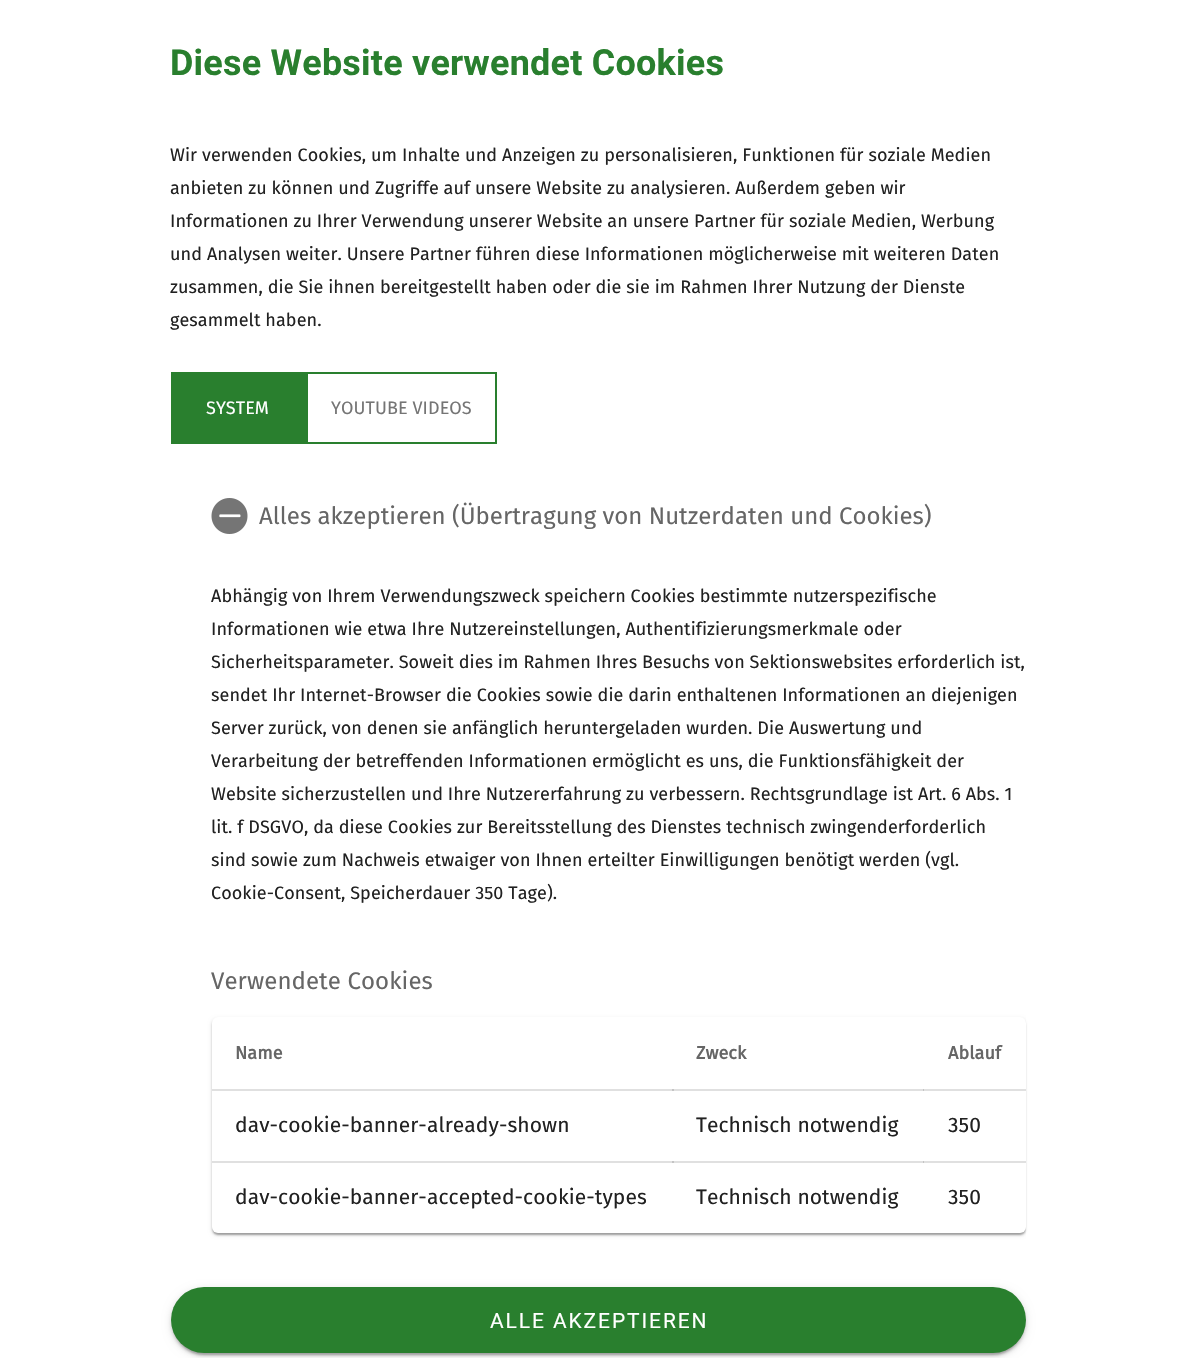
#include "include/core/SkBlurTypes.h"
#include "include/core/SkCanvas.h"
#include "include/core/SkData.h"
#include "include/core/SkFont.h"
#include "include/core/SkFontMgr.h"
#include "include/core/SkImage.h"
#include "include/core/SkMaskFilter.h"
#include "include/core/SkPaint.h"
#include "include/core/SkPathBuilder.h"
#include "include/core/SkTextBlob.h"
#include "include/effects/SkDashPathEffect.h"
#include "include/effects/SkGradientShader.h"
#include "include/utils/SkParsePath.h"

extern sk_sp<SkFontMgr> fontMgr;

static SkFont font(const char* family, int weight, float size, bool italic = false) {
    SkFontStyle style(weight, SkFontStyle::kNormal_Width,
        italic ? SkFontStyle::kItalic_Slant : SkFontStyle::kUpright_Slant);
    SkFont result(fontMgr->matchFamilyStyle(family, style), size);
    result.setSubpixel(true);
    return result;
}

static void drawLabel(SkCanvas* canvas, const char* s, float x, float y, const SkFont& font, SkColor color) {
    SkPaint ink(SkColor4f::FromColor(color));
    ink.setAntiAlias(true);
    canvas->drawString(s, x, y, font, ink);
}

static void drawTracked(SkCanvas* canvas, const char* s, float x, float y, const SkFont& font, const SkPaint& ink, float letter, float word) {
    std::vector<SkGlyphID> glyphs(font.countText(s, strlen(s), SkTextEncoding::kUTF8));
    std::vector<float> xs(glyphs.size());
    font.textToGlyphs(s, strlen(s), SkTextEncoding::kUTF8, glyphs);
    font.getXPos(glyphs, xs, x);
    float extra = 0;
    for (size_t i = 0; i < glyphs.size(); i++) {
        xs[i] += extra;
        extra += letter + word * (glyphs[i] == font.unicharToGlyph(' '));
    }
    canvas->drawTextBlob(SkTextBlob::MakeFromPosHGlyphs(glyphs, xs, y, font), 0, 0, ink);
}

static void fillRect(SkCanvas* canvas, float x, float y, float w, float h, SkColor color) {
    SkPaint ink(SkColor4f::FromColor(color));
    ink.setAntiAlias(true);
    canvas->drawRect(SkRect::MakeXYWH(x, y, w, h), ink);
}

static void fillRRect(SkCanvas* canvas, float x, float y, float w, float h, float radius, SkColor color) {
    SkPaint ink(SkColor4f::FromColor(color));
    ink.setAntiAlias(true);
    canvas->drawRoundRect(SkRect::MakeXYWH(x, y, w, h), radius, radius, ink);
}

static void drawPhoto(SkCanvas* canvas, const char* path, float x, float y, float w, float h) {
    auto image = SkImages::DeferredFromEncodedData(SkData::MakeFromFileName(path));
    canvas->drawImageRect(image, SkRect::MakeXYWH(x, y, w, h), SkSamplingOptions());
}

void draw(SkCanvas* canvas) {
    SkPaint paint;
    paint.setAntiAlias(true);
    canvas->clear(0xFFFFFFFF);
    SkFont font1 = font("Roboto", 700, 36);
    paint.setColor(0xFF297F2E);
    drawTracked(canvas, "Diese Website verwendet Cookies", 170, 75, font1, paint, 0.2f, 0);
    SkFont font2 = font("Fira Sans", 400, 18);
    paint.setColor(0xFF212121);
    drawTracked(canvas, "Wir verwenden Cookies, um Inhalte und Anzeigen zu personalisieren, Funktionen für soziale Medien", 170, 161, font2, paint, 0.08f, 0);
    drawTracked(canvas, "anbieten zu können und Zugriffe auf unsere Website zu analysieren. Außerdem geben wir", 170, 194, font2, paint, 0.08f, 0);
    drawTracked(canvas, "Informationen zu Ihrer Verwendung unserer Website an unsere Partner für soziale Medien, Werbung", 170, 227, font2, paint, 0.08f, 0);
    drawTracked(canvas, "und Analysen weiter. Unsere Partner führen diese Informationen möglicherweise mit weiteren Daten", 170, 260, font2, paint, 0.08f, 0);
    drawTracked(canvas, "zusammen, die Sie ihnen bereitgestellt haben oder die sie im Rahmen Ihrer Nutzung der Dienste", 170, 293, font2, paint, 0.08f, 0);
    drawTracked(canvas, "gesammelt haben.", 170, 326, font2, paint, 0.08f, 0);
    fillRect(canvas, 171, 372, 135, 72, 0xFF297F2E);
    paint.setColor(0xFFFFFFFF);
    drawTracked(canvas, "SYSTEM", 206, 414, font2, paint, 0.08f, 0);
    paint.setStroke(true);
    paint.setStrokeWidth(2);
    paint.setColor(0xFF297F2E);
    canvas->drawRect(SkRect::MakeXYWH(307, 373, 189, 70), paint);
    paint.setStroke(false);
    paint.setColor(0xFF757575);
    drawTracked(canvas, "YOUTUBE VIDEOS", 331, 414, font2, paint, 0.08f, 0);
    drawPhoto(canvas, "assets/img1.png", 211, 498, 37, 36);
    SkFont font3 = font("Fira Sans", 400, 24);
    drawLabel(canvas, "Alles akzeptieren (Übertragung von Nutzerdaten und Cookies)", 259, 524, font3, 0xFF666666);
    paint.setColor(0xFF212121);
    drawTracked(canvas, "Abhängig von Ihrem Verwendungszweck speichern Cookies bestimmte nutzerspezifische", 211, 602, font2, paint, 0.08f, 0);
    drawTracked(canvas, "Informationen wie etwa Ihre Nutzereinstellungen, Authentifizierungsmerkmale oder", 211, 635, font2, paint, 0.08f, 0);
    drawTracked(canvas, "Sicherheitsparameter. Soweit dies im Rahmen Ihres Besuchs von Sektionswebsites erforderlich ist,", 211, 668, font2, paint, 0.08f, 0);
    drawTracked(canvas, "sendet Ihr Internet-Browser die Cookies sowie die darin enthaltenen Informationen an diejenigen", 211, 701, font2, paint, 0.08f, 0);
    drawTracked(canvas, "Server zurück, von denen sie anfänglich heruntergeladen wurden. Die Auswertung und", 211, 734, font2, paint, 0.08f, 0);
    drawTracked(canvas, "Verarbeitung der betreffenden Informationen ermöglicht es uns, die Funktionsfähigkeit der", 211, 767, font2, paint, 0.08f, 0);
    drawTracked(canvas, "Website sicherzustellen und Ihre Nutzererfahrung zu verbessern. Rechtsgrundlage ist Art. 6 Abs. 1", 211, 800, font2, paint, 0.08f, 0);
    drawTracked(canvas, "lit. f DSGVO, da diese Cookies zur Bereitsstellung des Dienstes technisch zwingenderforderlich", 211, 833, font2, paint, 0.08f, 0);
    drawTracked(canvas, "sind sowie zum Nachweis etwaiger von Ihnen erteilter Einwilligungen benötigt werden (vgl.", 211, 866, font2, paint, 0.08f, 0);
    drawTracked(canvas, "Cookie-Consent, Speicherdauer 350 Tage).", 211, 899, font2, paint, 0.08f, 0);
    paint.setColor(0xFF666666);
    drawTracked(canvas, "Verwendete Cookies", 211, 989, font3, paint, 0.08f, 0);
    canvas->save();
    canvas->clipRect(SkRect::MakeXYWH(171, 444, 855, 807));
    paint.setColor(0x1F000000);
    paint.setMaskFilter(SkMaskFilter::MakeBlur(kNormal_SkBlurStyle, 2));
    canvas->drawRoundRect(SkRect::MakeXYWH(212, 1019, 814, 216), 6, 6, paint);
    paint.setMaskFilter(nullptr);
    canvas->restore();
    paint.setColor(0x24000000);
    paint.setMaskFilter(SkMaskFilter::MakeBlur(kNormal_SkBlurStyle, 1));
    canvas->drawRoundRect(SkRect::MakeXYWH(212, 1019, 814, 216), 6, 6, paint);
    paint.setMaskFilter(nullptr);
    paint.setColor(0x33000000);
    paint.setMaskFilter(SkMaskFilter::MakeBlur(kNormal_SkBlurStyle, 1));
    canvas->drawRoundRect(SkRect::MakeXYWH(213, 1022, 812, 213), 5, 5, paint);
    paint.setMaskFilter(nullptr);
    fillRRect(canvas, 212, 1017, 814, 216, 6, 0xFFFFFFFF);
    fillRect(canvas, 923, 1089, 103, 2, 0xFFE0E0E0);
    fillRect(canvas, 672, 1089, 252, 2, 0x1F000000);
    fillRect(canvas, 212, 1089, 462, 2, 0x1F000000);
    SkFont font4 = font("Fira Sans", 700, 18);
    paint.setColor(0xFF666666);
    drawTracked(canvas, "Name", 235, 1059, font4, paint, 0.08f, 0);
    drawTracked(canvas, "Zweck", 696, 1059, font4, paint, 0.08f, 0);
    drawTracked(canvas, "Ablauf", 948, 1059, font4, paint, 0.08f, 0);
    fillRect(canvas, 923, 1161, 103, 2, 0xFFE0E0E0);
    fillRect(canvas, 672, 1161, 252, 2, 0x1F000000);
    fillRect(canvas, 212, 1161, 462, 2, 0x1F000000);
    SkFont font5 = font("Fira Sans", 400, 21);
    paint.setColor(0xFF212121);
    drawTracked(canvas, "dav-cookie-banner-already-shown", 235, 1132, font5, paint, 0.08f, 0);
    drawTracked(canvas, "Technisch notwendig", 696, 1132, font5, paint, 0.08f, 0);
    drawTracked(canvas, "350", 948, 1132, font5, paint, 0.08f, 0);
    drawTracked(canvas, "dav-cookie-banner-accepted-cookie-types", 235, 1204, font5, paint, 0.08f, 0);
    drawTracked(canvas, "Technisch notwendig", 696, 1204, font5, paint, 0.08f, 0);
    drawTracked(canvas, "350", 948, 1204, font5, paint, 0.08f, 0);
    paint.setColor(0x1F000000);
    paint.setMaskFilter(SkMaskFilter::MakeBlur(kNormal_SkBlurStyle, 4));
    canvas->drawRoundRect(SkRect::MakeXYWH(171, 1289, 855, 66), 33, 33, paint);
    paint.setMaskFilter(nullptr);
    paint.setColor(0x24000000);
    paint.setMaskFilter(SkMaskFilter::MakeBlur(kNormal_SkBlurStyle, 1.5f));
    canvas->drawRoundRect(SkRect::MakeXYWH(171, 1290, 855, 66), 33, 33, paint);
    paint.setMaskFilter(nullptr);
    paint.setColor(0x33000000);
    paint.setMaskFilter(SkMaskFilter::MakeBlur(kNormal_SkBlurStyle, 1));
    canvas->drawRoundRect(SkRect::MakeXYWH(174, 1295, 849, 60), 30, 30, paint);
    paint.setMaskFilter(nullptr);
    fillRRect(canvas, 171, 1287, 855, 66, 33, 0xFF297F2E);
    SkFont font6 = font("Roboto", 400, 21);
    paint.setColor(0xFFFFFFFF);
    drawTracked(canvas, "ALLE AKZEPTIEREN", 490, 1328, font6, paint, 1.9f, 0);
}
